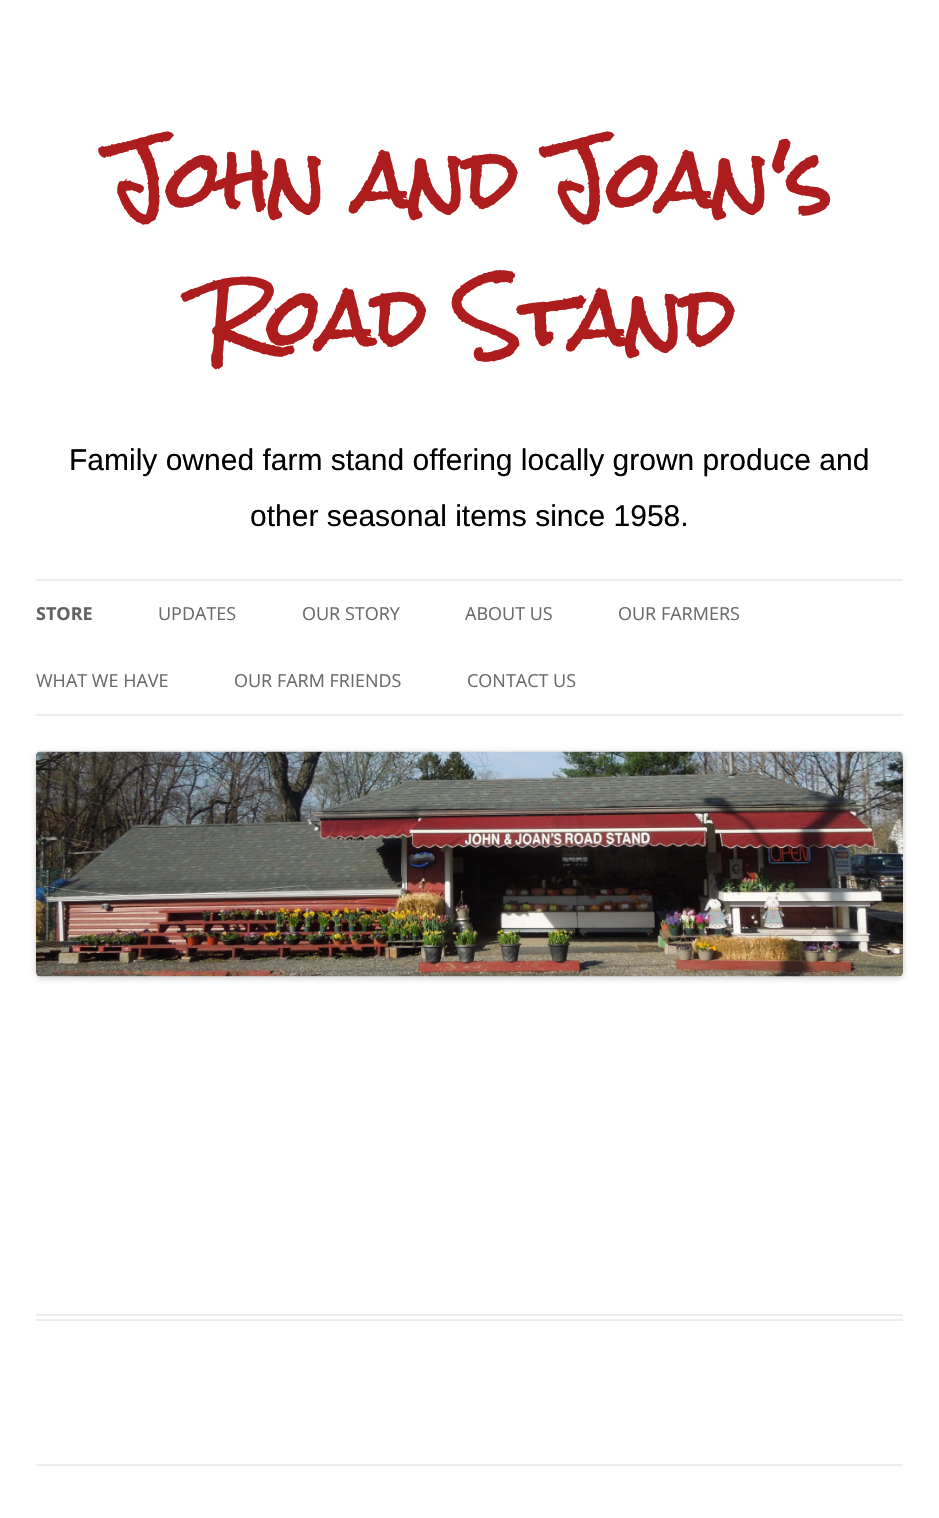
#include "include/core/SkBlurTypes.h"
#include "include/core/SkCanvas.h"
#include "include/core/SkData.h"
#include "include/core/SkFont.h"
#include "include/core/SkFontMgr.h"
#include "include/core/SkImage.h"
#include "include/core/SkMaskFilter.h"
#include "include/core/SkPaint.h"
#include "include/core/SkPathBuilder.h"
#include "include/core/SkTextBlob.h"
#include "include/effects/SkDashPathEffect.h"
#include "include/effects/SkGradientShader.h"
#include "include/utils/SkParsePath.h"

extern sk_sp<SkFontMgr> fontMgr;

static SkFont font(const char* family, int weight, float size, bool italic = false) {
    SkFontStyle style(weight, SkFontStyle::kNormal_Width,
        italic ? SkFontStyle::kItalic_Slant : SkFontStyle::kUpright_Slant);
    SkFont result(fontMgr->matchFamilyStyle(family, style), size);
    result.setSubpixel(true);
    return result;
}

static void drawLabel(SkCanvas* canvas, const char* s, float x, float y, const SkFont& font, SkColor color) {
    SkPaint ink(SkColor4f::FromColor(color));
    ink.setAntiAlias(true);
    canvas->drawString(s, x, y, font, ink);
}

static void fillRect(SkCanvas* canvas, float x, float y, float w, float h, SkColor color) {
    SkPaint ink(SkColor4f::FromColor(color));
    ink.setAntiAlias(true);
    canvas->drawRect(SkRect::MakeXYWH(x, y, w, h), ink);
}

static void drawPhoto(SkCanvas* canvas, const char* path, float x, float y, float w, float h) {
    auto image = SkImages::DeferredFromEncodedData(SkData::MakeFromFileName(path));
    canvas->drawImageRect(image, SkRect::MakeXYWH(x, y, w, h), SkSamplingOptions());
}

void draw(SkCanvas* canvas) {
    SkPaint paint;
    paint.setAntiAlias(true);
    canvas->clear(0xFFFFFFFF);
    SkFont font1 = font("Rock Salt", 700, 75);
    drawLabel(canvas, "John and Joan's", 108, 210, font1, 0xFFAD1D1D);
    drawLabel(canvas, "Road Stand", 204, 348, font1, 0xFFAD1D1D);
    SkFont font2 = font("Liberation Sans", 400, 30);
    drawLabel(canvas, "Family owned farm stand offering locally grown produce and", 69, 470, font2, 0xFF000000);
    drawLabel(canvas, "other seasonal items since 1958.", 250, 526, font2, 0xFF000000);
    fillRect(canvas, 36, 579, 867, 2, 0xFFEDEDED);
    fillRect(canvas, 36, 714, 867, 2, 0xFFEDEDED);
    SkFont font3 = font("Open Sans", 700, 18);
    drawLabel(canvas, "STORE", 36, 620, font3, 0xFF636363);
    SkFont font4 = font("Open Sans", 400, 18);
    drawLabel(canvas, "UPDATES", 158, 620, font4, 0xFF6A6A6A);
    drawLabel(canvas, "OUR STORY", 302, 620, font4, 0xFF6A6A6A);
    drawLabel(canvas, "ABOUT US", 465, 620, font4, 0xFF6A6A6A);
    drawLabel(canvas, "OUR FARMERS", 618, 620, font4, 0xFF6A6A6A);
    drawLabel(canvas, "WHAT WE HAVE", 36, 687, font4, 0xFF6A6A6A);
    drawLabel(canvas, "OUR FARM FRIENDS", 234, 687, font4, 0xFF6A6A6A);
    drawLabel(canvas, "CONTACT US", 467, 687, font4, 0xFF6A6A6A);
    paint.setColor(0x33000000);
    paint.setMaskFilter(SkMaskFilter::MakeBlur(kNormal_SkBlurStyle, 3));
    canvas->drawRoundRect(SkRect::MakeXYWH(36, 753, 867, 225), 5, 5, paint);
    paint.setMaskFilter(nullptr);
    drawPhoto(canvas, "assets/img1.png", 36, 751, 867, 226);
    fillRect(canvas, 36, 1314, 867, 2, 0xFFEDEDED);
    fillRect(canvas, 36, 1319, 867, 2, 0xFFEDEDED);
    fillRect(canvas, 36, 1464, 867, 2, 0xFFEDEDED);
}
